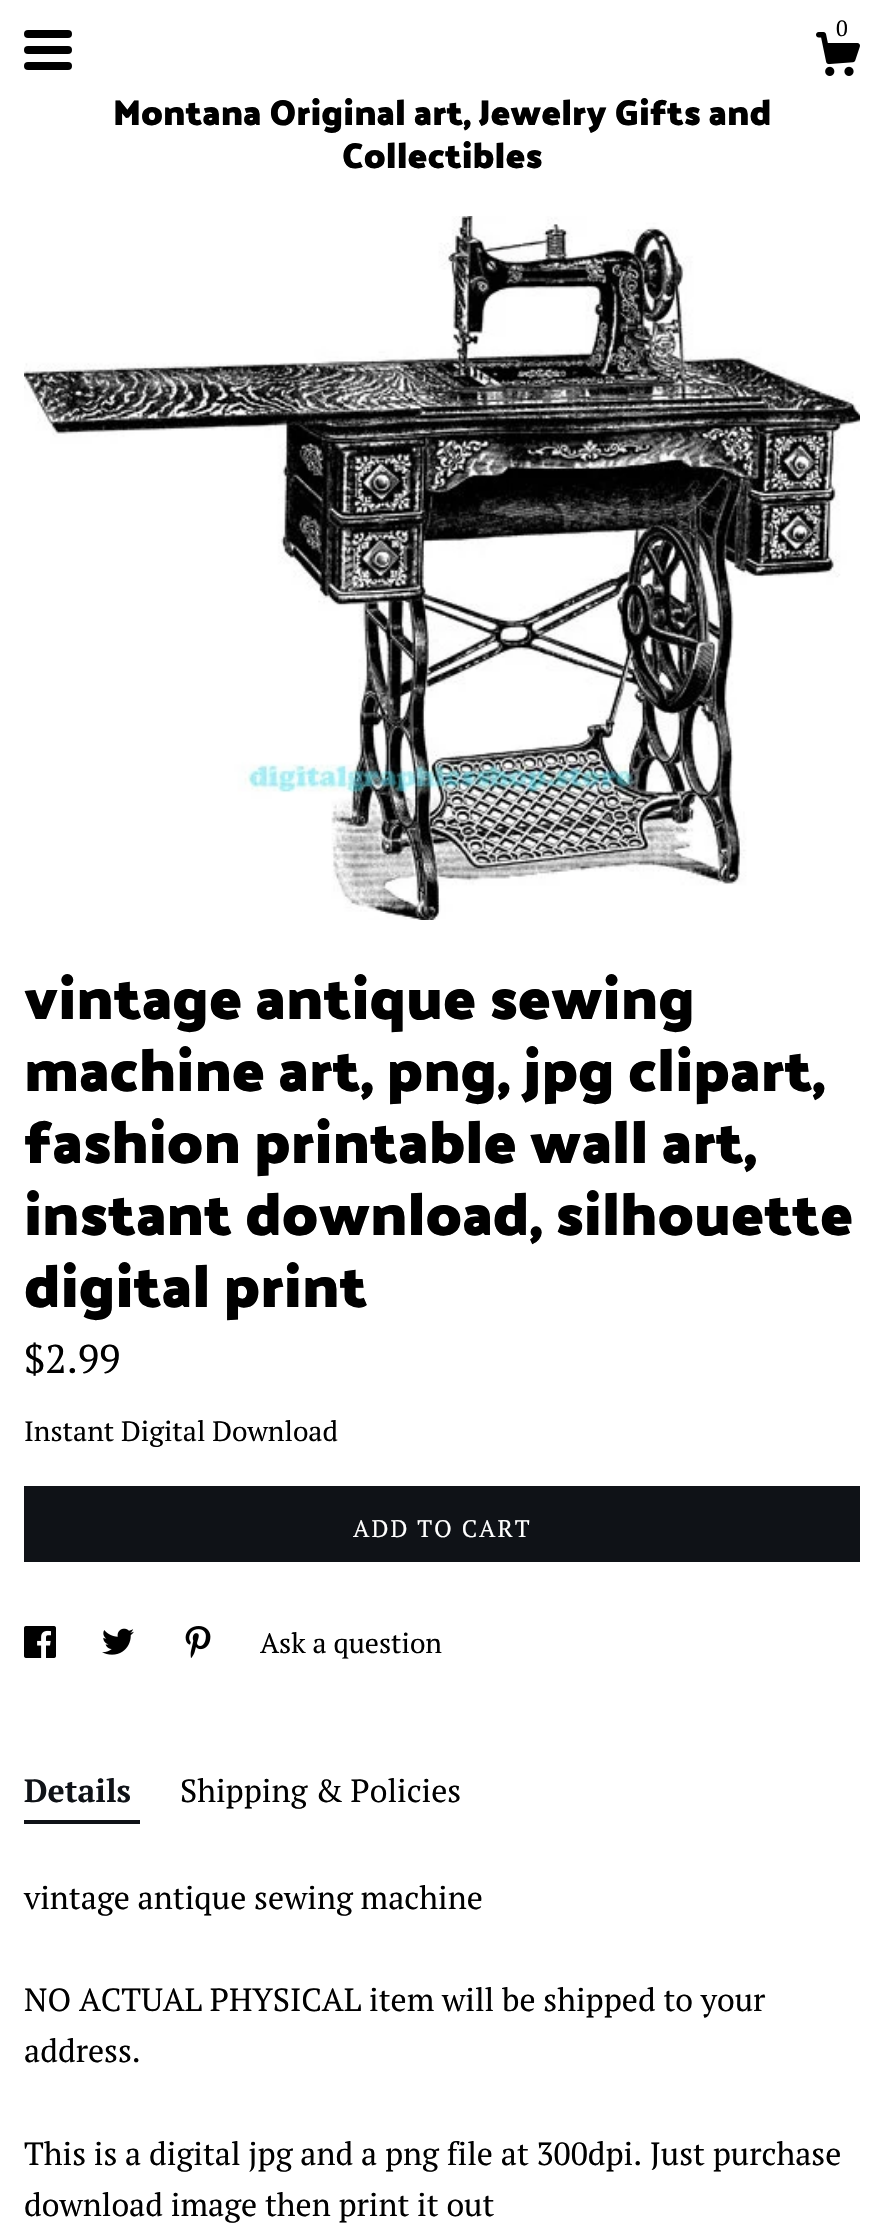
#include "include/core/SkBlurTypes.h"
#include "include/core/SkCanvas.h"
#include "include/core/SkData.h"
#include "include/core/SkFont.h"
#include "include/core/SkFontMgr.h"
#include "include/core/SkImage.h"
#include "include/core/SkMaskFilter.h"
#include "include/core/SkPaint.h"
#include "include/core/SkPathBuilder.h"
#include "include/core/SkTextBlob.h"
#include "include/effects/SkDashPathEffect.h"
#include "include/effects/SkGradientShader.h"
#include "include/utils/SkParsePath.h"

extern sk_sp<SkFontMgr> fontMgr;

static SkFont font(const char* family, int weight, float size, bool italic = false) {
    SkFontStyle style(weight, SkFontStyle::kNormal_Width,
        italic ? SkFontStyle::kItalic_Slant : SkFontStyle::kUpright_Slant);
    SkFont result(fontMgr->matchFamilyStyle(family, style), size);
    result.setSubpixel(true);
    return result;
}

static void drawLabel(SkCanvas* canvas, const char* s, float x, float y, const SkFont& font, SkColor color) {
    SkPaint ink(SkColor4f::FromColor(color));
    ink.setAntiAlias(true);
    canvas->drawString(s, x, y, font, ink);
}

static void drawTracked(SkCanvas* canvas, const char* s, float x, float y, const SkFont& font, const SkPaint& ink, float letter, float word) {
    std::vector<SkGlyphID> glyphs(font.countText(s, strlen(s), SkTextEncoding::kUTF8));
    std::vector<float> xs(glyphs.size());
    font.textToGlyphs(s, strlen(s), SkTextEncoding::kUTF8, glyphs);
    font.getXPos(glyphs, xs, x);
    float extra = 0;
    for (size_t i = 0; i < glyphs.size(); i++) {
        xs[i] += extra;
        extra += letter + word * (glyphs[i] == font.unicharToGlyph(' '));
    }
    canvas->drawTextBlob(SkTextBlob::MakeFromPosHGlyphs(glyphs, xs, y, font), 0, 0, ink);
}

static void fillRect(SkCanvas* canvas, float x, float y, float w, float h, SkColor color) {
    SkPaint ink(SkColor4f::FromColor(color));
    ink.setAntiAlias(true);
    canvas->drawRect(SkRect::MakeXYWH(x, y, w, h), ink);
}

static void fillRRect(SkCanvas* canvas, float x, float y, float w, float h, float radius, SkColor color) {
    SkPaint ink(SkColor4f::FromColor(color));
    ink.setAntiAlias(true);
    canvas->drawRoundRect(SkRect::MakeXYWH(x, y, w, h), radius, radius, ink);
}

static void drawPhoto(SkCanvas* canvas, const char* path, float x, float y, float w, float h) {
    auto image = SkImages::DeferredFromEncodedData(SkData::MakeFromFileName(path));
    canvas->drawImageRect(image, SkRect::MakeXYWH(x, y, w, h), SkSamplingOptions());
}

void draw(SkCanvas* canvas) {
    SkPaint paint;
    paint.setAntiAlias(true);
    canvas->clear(0xFFFFFFFF);
    fillRRect(canvas, 24, 30, 48, 8, 4, 0xFF000000);
    fillRRect(canvas, 24, 46, 48, 8, 4, 0xFF000000);
    fillRRect(canvas, 24, 62, 48, 8, 4, 0xFF000000);
    drawPhoto(canvas, "assets/img1.png", 816, 32, 44, 44);
    SkFont font1 = font("PT Serif", 400, 22);
    drawLabel(canvas, "0", 836, 36, font1, 0xFF000000);
    SkFont font2 = font("Palanquin Dark", 700, 36);
    drawLabel(canvas, "Montana Original art, Jewelry Gifts and", 113, 125, font2, 0xFF000000);
    drawLabel(canvas, "Collectibles", 342, 168, font2, 0xFF000000);
    drawPhoto(canvas, "assets/img2.png", 24, 216, 836, 704);
    SkFont font3 = font("Palanquin Dark", 700, 60);
    drawLabel(canvas, "vintage antique sewing", 24, 1019, font3, 0xFF000000);
    drawLabel(canvas, "machine art, png, jpg clipart,", 24, 1091, font3, 0xFF000000);
    drawLabel(canvas, "fashion printable wall art,", 24, 1163, font3, 0xFF000000);
    drawLabel(canvas, "instant download, silhouette", 24, 1235, font3, 0xFF000000);
    drawLabel(canvas, "digital print", 24, 1307, font3, 0xFF000000);
    SkFont font4 = font("PT Serif", 400, 40);
    drawLabel(canvas, "$2.99", 24, 1373, font4, 0xFF000000);
    SkFont font5 = font("PT Serif", 400, 28);
    drawLabel(canvas, "Instant Digital Download", 24, 1441, font5, 0xFF000000);
    fillRect(canvas, 24, 1486, 836, 76, 0xFF0F1217);
    SkFont font6 = font("PT Serif", 400, 24);
    paint.setColor(0xFFFFFFFF);
    drawTracked(canvas, "ADD TO CART", 353, 1537, font6, paint, 2, 0);
    drawPhoto(canvas, "assets/img3.png", 24, 1626, 32, 32);
    drawPhoto(canvas, "assets/img4.png", 102, 1628, 32, 27);
    drawPhoto(canvas, "assets/img5.png", 185, 1626, 26, 32);
    drawLabel(canvas, "Ask a question", 260, 1653, font5, 0xFF000000);
    SkFont font7 = font("PT Serif", 700, 32);
    drawLabel(canvas, "Details", 24, 1802, font7, 0xFF0F1217);
    fillRect(canvas, 24, 1820, 116, 4, 0xFF0F1217);
    SkFont font8 = font("PT Serif", 400, 32);
    drawLabel(canvas, "Shipping & Policies", 180, 1802, font8, 0xFF000000);
    drawLabel(canvas, "vintage antique sewing machine", 24, 1909, font8, 0xFF000000);
    drawLabel(canvas, "NO ACTUAL PHYSICAL item will be shipped to your", 24, 2011, font8, 0xFF000000);
    drawLabel(canvas, "address.", 24, 2062, font8, 0xFF000000);
    drawLabel(canvas, "This is a digital jpg and a png file at 300dpi. Just purchase", 24, 2165, font8, 0xFF000000);
    drawLabel(canvas, "download image then print it out", 24, 2216, font8, 0xFF000000);
}
